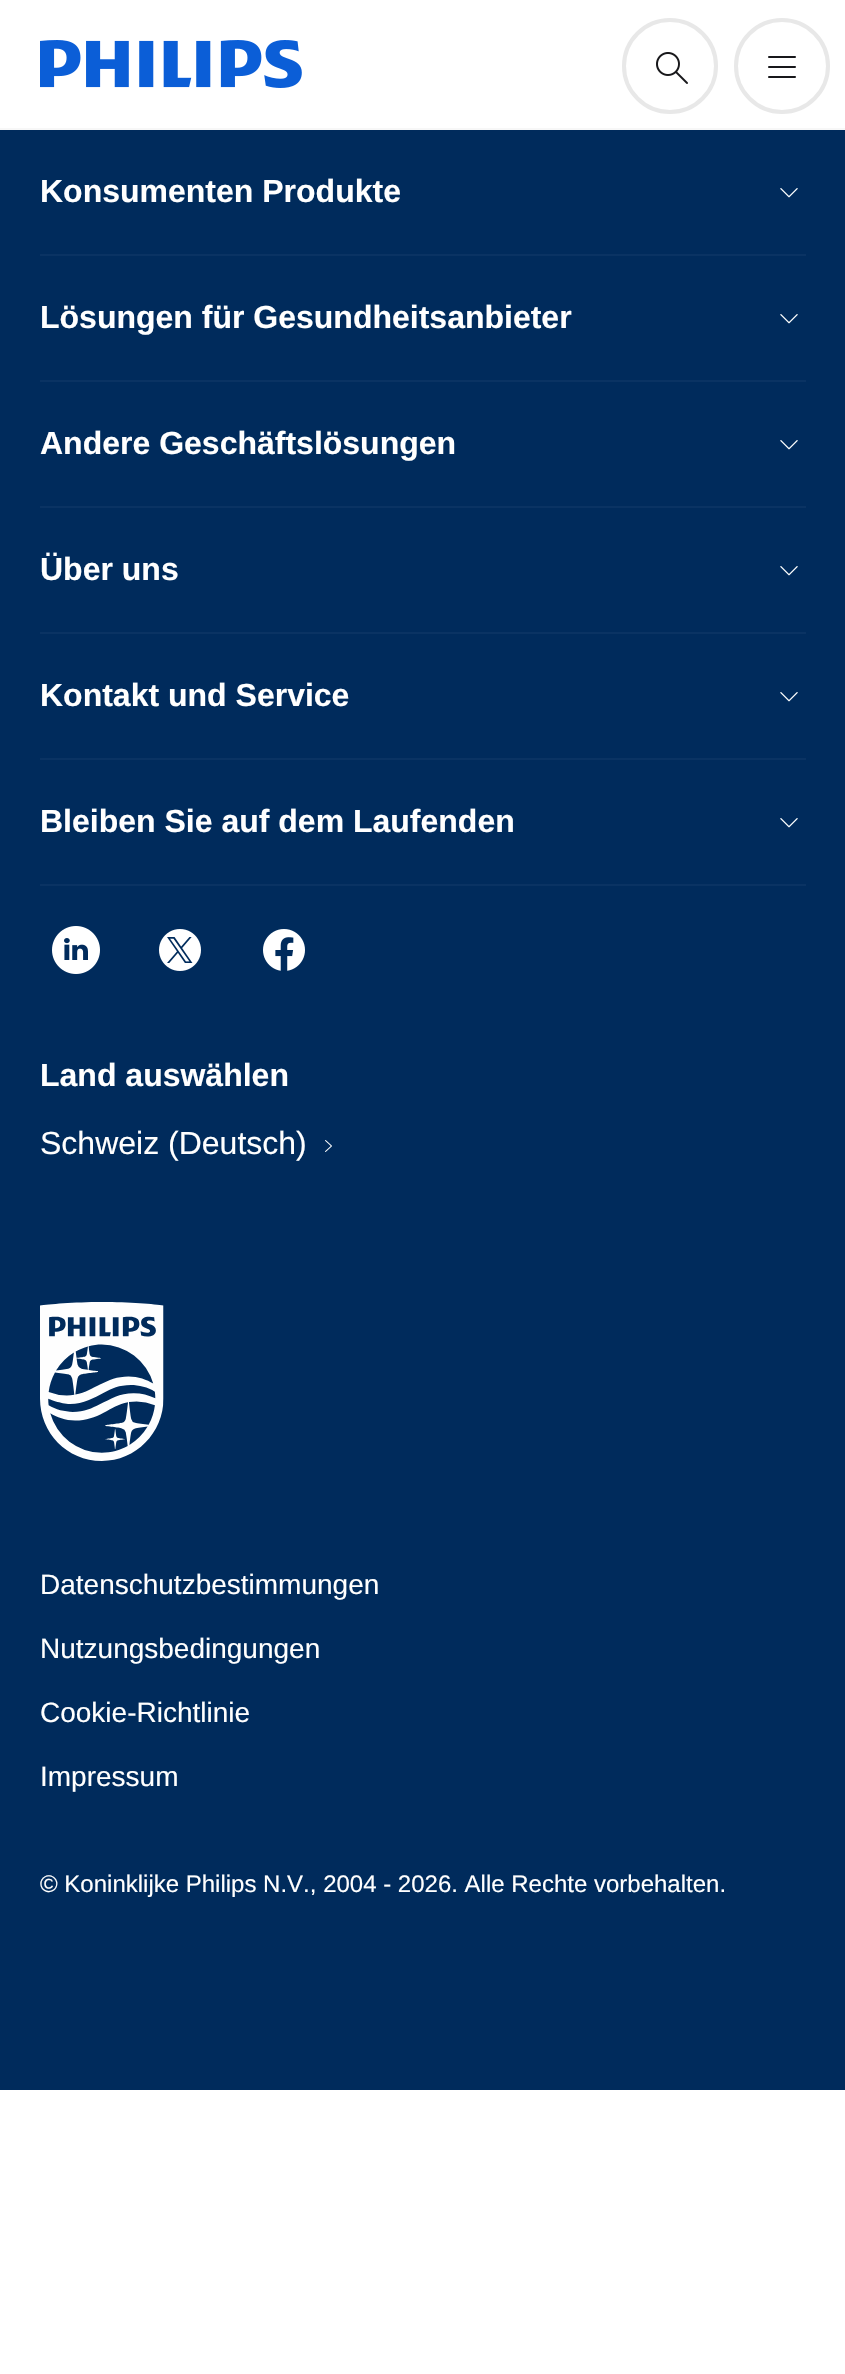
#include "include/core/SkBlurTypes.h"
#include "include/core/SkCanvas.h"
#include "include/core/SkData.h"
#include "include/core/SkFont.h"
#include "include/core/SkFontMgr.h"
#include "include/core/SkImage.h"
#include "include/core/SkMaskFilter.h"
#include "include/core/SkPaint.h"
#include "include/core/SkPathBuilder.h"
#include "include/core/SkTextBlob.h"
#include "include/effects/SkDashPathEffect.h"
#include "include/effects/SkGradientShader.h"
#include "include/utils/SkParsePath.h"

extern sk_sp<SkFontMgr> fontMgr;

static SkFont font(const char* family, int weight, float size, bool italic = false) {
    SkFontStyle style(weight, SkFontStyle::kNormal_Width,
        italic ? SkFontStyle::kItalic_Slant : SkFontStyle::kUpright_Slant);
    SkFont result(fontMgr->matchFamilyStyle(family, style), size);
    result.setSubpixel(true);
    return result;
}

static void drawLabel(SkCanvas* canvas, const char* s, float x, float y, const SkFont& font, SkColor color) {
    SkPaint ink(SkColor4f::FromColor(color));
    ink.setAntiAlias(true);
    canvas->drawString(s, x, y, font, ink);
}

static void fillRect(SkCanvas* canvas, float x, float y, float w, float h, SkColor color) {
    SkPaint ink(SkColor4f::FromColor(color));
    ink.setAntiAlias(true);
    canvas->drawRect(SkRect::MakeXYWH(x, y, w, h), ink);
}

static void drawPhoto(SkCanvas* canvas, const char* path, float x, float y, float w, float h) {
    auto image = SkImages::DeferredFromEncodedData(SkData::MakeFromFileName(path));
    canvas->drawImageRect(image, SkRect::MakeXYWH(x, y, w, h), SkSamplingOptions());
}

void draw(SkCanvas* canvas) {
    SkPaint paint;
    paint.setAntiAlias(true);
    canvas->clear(0xFFFFFFFF);
    drawPhoto(canvas, "assets/img1.png", 40, 40, 262, 48);
    paint.setStroke(true);
    paint.setStrokeWidth(4);
    paint.setColor(0xFFE8E8E8);
    canvas->drawCircle(670, 66, 46, paint);
    drawPhoto(canvas, "assets/img2.png", 656, 52, 32, 32);
    canvas->drawCircle(782, 66, 46, paint);
    drawPhoto(canvas, "assets/img3.png", 768, 56, 28, 22);
    fillRect(canvas, 0, 128, 845, 2, 0xFFF7F7F7);
    fillRect(canvas, 0, 130, 845, 1960, 0xFF002B5C);
    fillRect(canvas, 40, 254, 766, 2, 0xFF0A3363);
    SkFont font1 = font("Liberation Sans", 700, 32);
    drawLabel(canvas, "Konsumenten Produkte", 40, 202, font1, 0xFFFFFFFF);
    drawPhoto(canvas, "assets/img4.png", 780, 188, 18, 10);
    fillRect(canvas, 40, 380, 766, 2, 0xFF0A3363);
    drawLabel(canvas, "Lösungen für Gesundheitsanbieter", 40, 328, font1, 0xFFFFFFFF);
    drawPhoto(canvas, "assets/img4.png", 780, 314, 18, 10);
    fillRect(canvas, 40, 506, 766, 2, 0xFF0A3363);
    drawLabel(canvas, "Andere Geschäftslösungen", 40, 454, font1, 0xFFFFFFFF);
    drawPhoto(canvas, "assets/img4.png", 780, 440, 18, 10);
    fillRect(canvas, 40, 632, 766, 2, 0xFF0A3363);
    drawLabel(canvas, "Über uns", 40, 580, font1, 0xFFFFFFFF);
    drawPhoto(canvas, "assets/img4.png", 780, 566, 18, 10);
    fillRect(canvas, 40, 758, 766, 2, 0xFF0A3363);
    drawLabel(canvas, "Kontakt und Service", 40, 706, font1, 0xFFFFFFFF);
    drawPhoto(canvas, "assets/img4.png", 780, 692, 18, 10);
    fillRect(canvas, 40, 884, 766, 2, 0xFF0A3363);
    drawLabel(canvas, "Bleiben Sie auf dem Laufenden", 40, 832, font1, 0xFFFFFFFF);
    drawPhoto(canvas, "assets/img4.png", 780, 818, 18, 10);
    drawPhoto(canvas, "assets/img5.png", 52, 926, 48, 48);
    drawPhoto(canvas, "assets/img6.png", 159, 929, 42, 42);
    drawPhoto(canvas, "assets/img7.png", 263, 929, 42, 42);
    drawLabel(canvas, "Land auswählen", 40, 1086, font1, 0xFFFFFFFF);
    SkFont font2 = font("Liberation Sans", 400, 32);
    drawLabel(canvas, "Schweiz (Deutsch)", 40, 1154, font2, 0xFFFFFFFF);
    drawPhoto(canvas, "assets/img8.png", 325, 1140, 7, 12);
    drawPhoto(canvas, "assets/img9.png", 40, 1302, 124, 159);
    SkFont font3 = font("Liberation Sans", 400, 28);
    drawLabel(canvas, "Datenschutzbestimmungen", 40, 1594, font3, 0xFFFFFFFF);
    drawLabel(canvas, "Nutzungsbedingungen", 40, 1658, font3, 0xFFFFFFFF);
    drawLabel(canvas, "Cookie-Richtlinie", 40, 1722, font3, 0xFFFFFFFF);
    drawLabel(canvas, "Impressum", 40, 1786, font3, 0xFFFFFFFF);
    SkFont font4 = font("Liberation Sans", 400, 24);
    drawLabel(canvas, "© Koninklijke Philips N.V., 2004 - 2026. Alle Rechte vorbehalten.", 40, 1892, font4, 0xFFFFFFFF);
}
